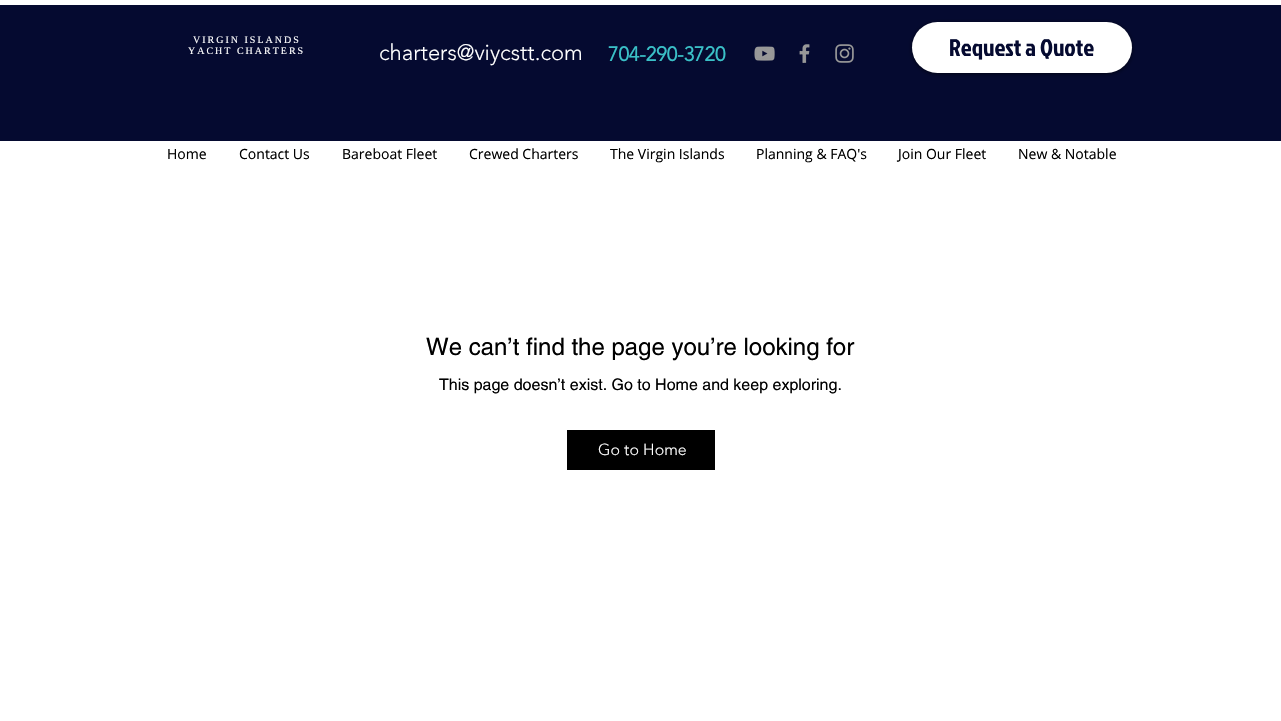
#include "include/core/SkBlurTypes.h"
#include "include/core/SkCanvas.h"
#include "include/core/SkData.h"
#include "include/core/SkFont.h"
#include "include/core/SkFontMgr.h"
#include "include/core/SkImage.h"
#include "include/core/SkMaskFilter.h"
#include "include/core/SkPaint.h"
#include "include/core/SkPathBuilder.h"
#include "include/core/SkTextBlob.h"
#include "include/effects/SkDashPathEffect.h"
#include "include/effects/SkGradientShader.h"
#include "include/utils/SkParsePath.h"

extern sk_sp<SkFontMgr> fontMgr;

static SkFont font(const char* family, int weight, float size, bool italic = false) {
    SkFontStyle style(weight, SkFontStyle::kNormal_Width,
        italic ? SkFontStyle::kItalic_Slant : SkFontStyle::kUpright_Slant);
    SkFont result(fontMgr->matchFamilyStyle(family, style), size);
    result.setSubpixel(true);
    return result;
}

static void drawLabel(SkCanvas* canvas, const char* s, float x, float y, const SkFont& font, SkColor color) {
    SkPaint ink(SkColor4f::FromColor(color));
    ink.setAntiAlias(true);
    canvas->drawString(s, x, y, font, ink);
}

static void drawTracked(SkCanvas* canvas, const char* s, float x, float y, const SkFont& font, const SkPaint& ink, float letter, float word) {
    std::vector<SkGlyphID> glyphs(font.countText(s, strlen(s), SkTextEncoding::kUTF8));
    std::vector<float> xs(glyphs.size());
    font.textToGlyphs(s, strlen(s), SkTextEncoding::kUTF8, glyphs);
    font.getXPos(glyphs, xs, x);
    float extra = 0;
    for (size_t i = 0; i < glyphs.size(); i++) {
        xs[i] += extra;
        extra += letter + word * (glyphs[i] == font.unicharToGlyph(' '));
    }
    canvas->drawTextBlob(SkTextBlob::MakeFromPosHGlyphs(glyphs, xs, y, font), 0, 0, ink);
}

static void fillRect(SkCanvas* canvas, float x, float y, float w, float h, SkColor color) {
    SkPaint ink(SkColor4f::FromColor(color));
    ink.setAntiAlias(true);
    canvas->drawRect(SkRect::MakeXYWH(x, y, w, h), ink);
}

static void fillRRect(SkCanvas* canvas, float x, float y, float w, float h, float radius, SkColor color) {
    SkPaint ink(SkColor4f::FromColor(color));
    ink.setAntiAlias(true);
    canvas->drawRoundRect(SkRect::MakeXYWH(x, y, w, h), radius, radius, ink);
}

static void drawPhoto(SkCanvas* canvas, const char* path, float x, float y, float w, float h) {
    auto image = SkImages::DeferredFromEncodedData(SkData::MakeFromFileName(path));
    canvas->drawImageRect(image, SkRect::MakeXYWH(x, y, w, h), SkSamplingOptions());
}

void draw(SkCanvas* canvas) {
    SkPaint paint;
    paint.setAntiAlias(true);
    canvas->clear(0xFFFFFFFF);
    fillRect(canvas, 0, 5, 1281, 136, 0xFF050A30);
    SkFont font1 = font("Liberation Serif", 400, 10);
    paint.setColor(0xFFFFFFFF);
    drawTracked(canvas, "VIRGIN ISLANDS", 193, 43, font1, paint, 2, 0);
    drawTracked(canvas, "YACHT CHARTERS", 188, 54, font1, paint, 2, 0);
    SkFont font2 = font("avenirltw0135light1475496", 300, 22);
    drawLabel(canvas, "charters@viycstt.com", 379, 60, font2, 0xFFFFFFFF);
    SkFont font3 = font("avenirltw0135light1475496", 700, 20);
    drawLabel(canvas, "704-290-3720", 608, 61, font3, 0xFF3AC0C7);
    drawPhoto(canvas, "assets/img1.png", 754, 46, 21, 15);
    drawPhoto(canvas, "assets/img2.png", 799, 44, 11, 19);
    drawPhoto(canvas, "assets/img3.png", 835, 44, 19, 19);
    paint.setColor(0x99000000);
    paint.setMaskFilter(SkMaskFilter::MakeBlur(kNormal_SkBlurStyle, 2));
    canvas->drawRoundRect(SkRect::MakeXYWH(912, 23, 220, 51), 25.5f, 25.5f, paint);
    paint.setMaskFilter(nullptr);
    fillRRect(canvas, 912, 22, 220, 51, 25.5f, 0xFFFFFFFF);
    SkFont font4 = font("Jockey One", 400, 24);
    drawLabel(canvas, "Request a Quote", 949, 56, font4, 0xFF050A30);
    SkFont font5 = font("Open Sans", 400, 14);
    drawLabel(canvas, "Home", 167, 159, font5, 0xFF000000);
    drawLabel(canvas, "Contact Us", 239, 159, font5, 0xFF000000);
    drawLabel(canvas, "Bareboat Fleet", 342, 159, font5, 0xFF000000);
    drawLabel(canvas, "Crewed Charters", 469, 159, font5, 0xFF000000);
    drawLabel(canvas, "The Virgin Islands", 610, 159, font5, 0xFF000000);
    drawLabel(canvas, "Planning & FAQ's", 756, 159, font5, 0xFF000000);
    drawLabel(canvas, "Join Our Fleet", 898, 159, font5, 0xFF000000);
    drawLabel(canvas, "New & Notable", 1018, 159, font5, 0xFF000000);
    SkFont font6 = font("helvetica", 400, 24);
    drawLabel(canvas, "We can’t find the page you’re looking for", 426, 355, font6, 0xFF000000);
    SkFont font7 = font("helvetica", 400, 16);
    drawLabel(canvas, "This page doesn’t exist. Go to Home and keep exploring.", 439, 390, font7, 0xFF000000);
    fillRect(canvas, 567, 430, 148, 40, 0xFF000000);
    SkFont font8 = font("avenirltw0135light1475496", 300, 16);
    drawLabel(canvas, "Go to Home", 598, 455, font8, 0xFFFFFFFF);
}
